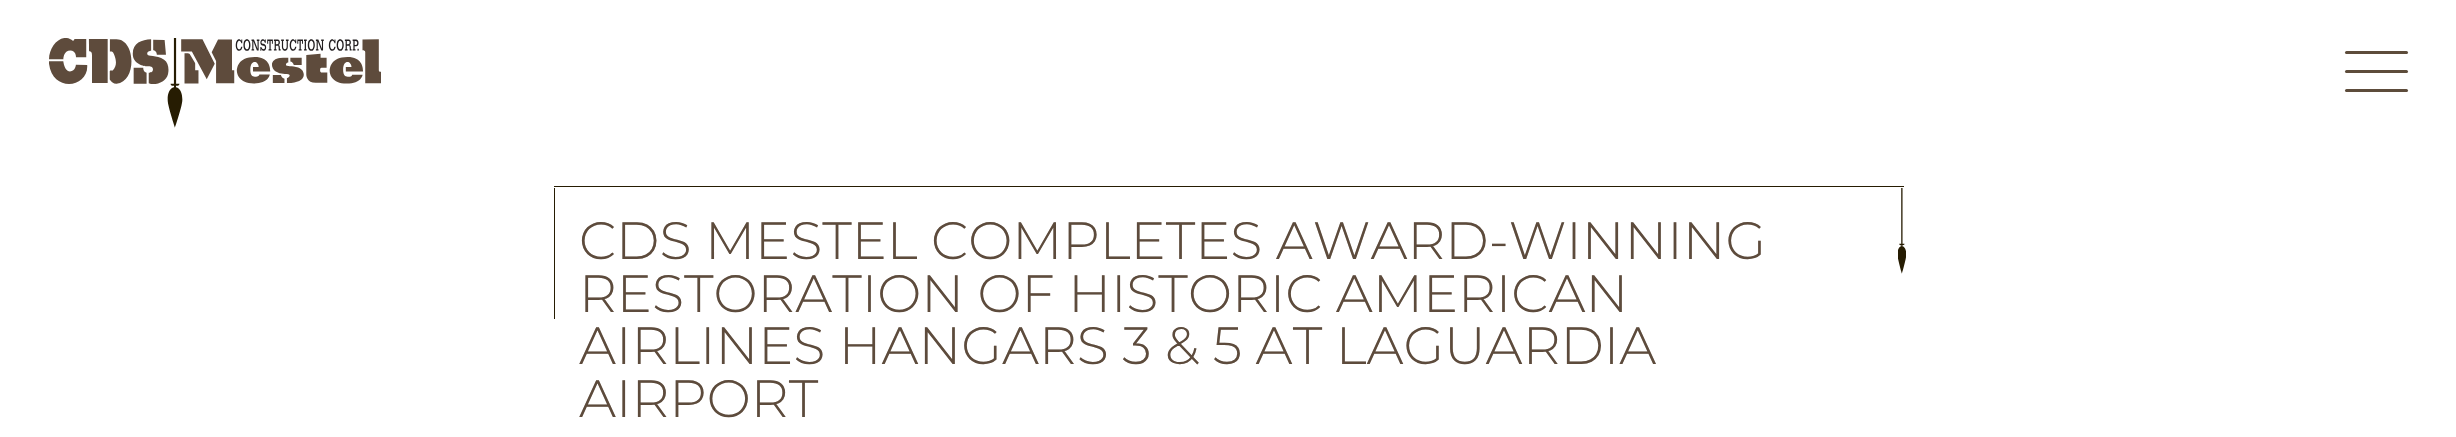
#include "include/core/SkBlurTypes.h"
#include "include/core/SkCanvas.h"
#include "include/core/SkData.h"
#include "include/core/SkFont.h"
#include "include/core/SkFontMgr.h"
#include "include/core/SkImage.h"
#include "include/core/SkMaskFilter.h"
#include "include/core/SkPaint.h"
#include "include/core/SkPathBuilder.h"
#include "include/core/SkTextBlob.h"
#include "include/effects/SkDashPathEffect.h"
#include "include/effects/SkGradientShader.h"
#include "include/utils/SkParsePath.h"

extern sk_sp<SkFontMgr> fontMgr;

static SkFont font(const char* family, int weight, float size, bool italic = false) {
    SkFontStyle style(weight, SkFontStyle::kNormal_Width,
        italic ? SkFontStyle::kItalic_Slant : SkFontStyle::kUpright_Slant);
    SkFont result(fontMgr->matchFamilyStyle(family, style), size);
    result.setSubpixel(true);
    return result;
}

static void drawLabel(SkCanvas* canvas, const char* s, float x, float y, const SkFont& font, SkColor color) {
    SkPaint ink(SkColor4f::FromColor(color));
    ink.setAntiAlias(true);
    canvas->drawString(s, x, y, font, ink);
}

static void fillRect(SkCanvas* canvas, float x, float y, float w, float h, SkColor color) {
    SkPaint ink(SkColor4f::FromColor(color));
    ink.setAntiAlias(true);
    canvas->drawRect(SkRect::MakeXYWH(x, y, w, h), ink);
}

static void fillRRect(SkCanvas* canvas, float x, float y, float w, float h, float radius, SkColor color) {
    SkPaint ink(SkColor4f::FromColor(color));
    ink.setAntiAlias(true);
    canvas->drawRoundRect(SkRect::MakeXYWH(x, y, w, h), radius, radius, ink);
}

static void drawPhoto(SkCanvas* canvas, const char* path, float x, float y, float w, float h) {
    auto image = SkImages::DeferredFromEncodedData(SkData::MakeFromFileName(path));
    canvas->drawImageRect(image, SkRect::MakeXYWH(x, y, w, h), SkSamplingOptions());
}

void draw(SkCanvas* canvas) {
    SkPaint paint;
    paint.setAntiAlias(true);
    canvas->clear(0xFFFFFFFF);
    drawPhoto(canvas, "assets/img1.png", 49, 38, 332, 90);
    fillRRect(canvas, 2345, 51, 63, 3, 1.5f, 0xFF5D4C3B);
    fillRRect(canvas, 2345, 70, 63, 3, 1.5f, 0xFF5D4C3B);
    fillRRect(canvas, 2345, 89, 63, 3, 1.5f, 0xFF5D4C3B);
    fillRect(canvas, 554, 186, 1350, 1, 0xFF261C02);
    fillRect(canvas, 554, 188, 1, 131, 0xFF261C02);
    SkFont font1 = font("Montserrat", 100, 52.5f);
    drawLabel(canvas, "CDS MESTEL COMPLETES AWARD-WINNING", 579, 259, font1, 0xFF5D4B3C);
    drawPhoto(canvas, "assets/img2.png", 1898, 188, 8, 86);
    drawLabel(canvas, "RESTORATION OF HISTORIC AMERICAN", 579, 312, font1, 0xFF5D4B3C);
    drawLabel(canvas, "AIRLINES HANGARS 3 & 5 AT LAGUARDIA", 579, 364, font1, 0xFF5D4B3C);
    drawLabel(canvas, "AIRPORT", 579, 417, font1, 0xFF5D4B3C);
}
